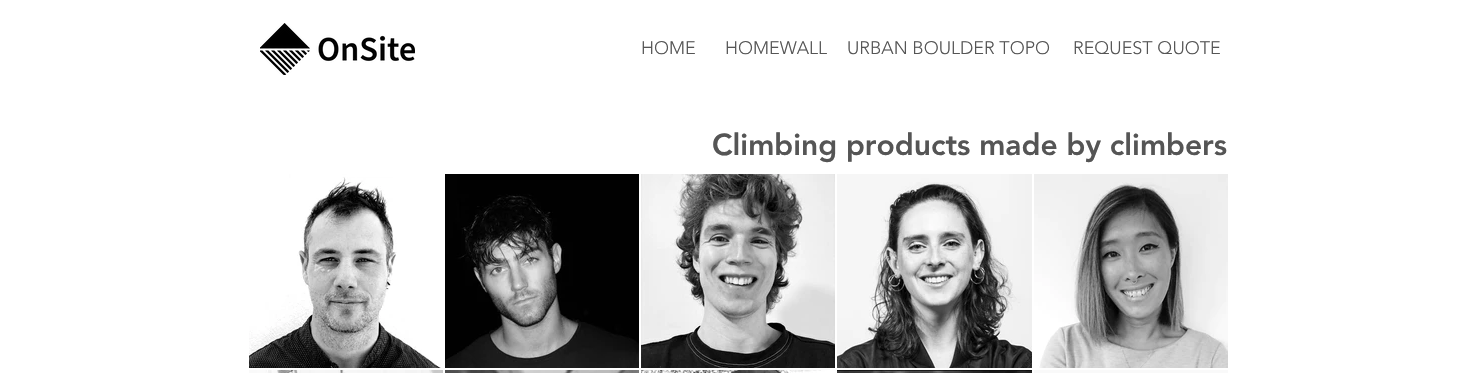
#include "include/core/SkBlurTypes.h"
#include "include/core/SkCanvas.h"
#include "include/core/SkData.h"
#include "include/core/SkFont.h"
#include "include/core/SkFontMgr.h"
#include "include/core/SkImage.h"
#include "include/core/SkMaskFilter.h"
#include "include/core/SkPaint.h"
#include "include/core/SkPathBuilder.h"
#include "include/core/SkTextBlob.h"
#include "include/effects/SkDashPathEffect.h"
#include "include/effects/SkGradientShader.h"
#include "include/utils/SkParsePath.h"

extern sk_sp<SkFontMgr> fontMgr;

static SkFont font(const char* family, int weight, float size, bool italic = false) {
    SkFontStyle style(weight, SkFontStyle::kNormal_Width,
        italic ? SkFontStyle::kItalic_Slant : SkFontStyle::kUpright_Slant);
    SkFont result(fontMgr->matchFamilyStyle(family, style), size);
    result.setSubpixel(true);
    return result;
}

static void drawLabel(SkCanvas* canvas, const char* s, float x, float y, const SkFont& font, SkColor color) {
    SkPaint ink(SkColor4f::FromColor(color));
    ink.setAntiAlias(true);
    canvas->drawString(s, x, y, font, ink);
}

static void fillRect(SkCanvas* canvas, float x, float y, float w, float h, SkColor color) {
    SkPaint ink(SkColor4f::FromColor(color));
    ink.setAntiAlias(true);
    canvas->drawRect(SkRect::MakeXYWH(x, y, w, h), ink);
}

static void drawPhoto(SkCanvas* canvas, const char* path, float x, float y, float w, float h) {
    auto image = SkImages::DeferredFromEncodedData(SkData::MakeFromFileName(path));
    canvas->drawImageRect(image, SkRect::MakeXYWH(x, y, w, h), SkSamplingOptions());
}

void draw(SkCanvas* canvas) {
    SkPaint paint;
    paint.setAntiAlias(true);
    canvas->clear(0xFFFFFFFF);
    drawPhoto(canvas, "assets/img1.png", 260, 23, 155, 52);
    SkFont font1 = font("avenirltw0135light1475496", 300, 18);
    drawLabel(canvas, "HOME", 641, 54, font1, 0xFF555555);
    drawLabel(canvas, "HOMEWALL", 725, 54, font1, 0xFF555555);
    drawLabel(canvas, "URBAN BOULDER TOPO", 847, 54, font1, 0xFF555555);
    drawLabel(canvas, "REQUEST QUOTE", 1073, 54, font1, 0xFF555555);
    SkFont font2 = font("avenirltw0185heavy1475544", 900, 30);
    drawLabel(canvas, "Climbing products made by climbers", 712, 155, font2, 0xFF555555);
    drawPhoto(canvas, "assets/img2.png", 249, 174, 194, 194);
    drawPhoto(canvas, "assets/img3.png", 445, 174, 194, 194);
    drawPhoto(canvas, "assets/img4.png", 641, 174, 194, 194);
    drawPhoto(canvas, "assets/img5.png", 837, 174, 195, 194);
    drawPhoto(canvas, "assets/img6.png", 1034, 174, 194, 194);
    drawPhoto(canvas, "assets/img7.png", 249, 370, 194, 3);
    drawPhoto(canvas, "assets/img8.png", 445, 370, 194, 3);
    drawPhoto(canvas, "assets/img9.png", 641, 370, 194, 3);
    drawPhoto(canvas, "assets/img10.png", 837, 370, 195, 3);
    fillRect(canvas, 1034, 370, 194, 3, 0xFFF9F9F9);
}
